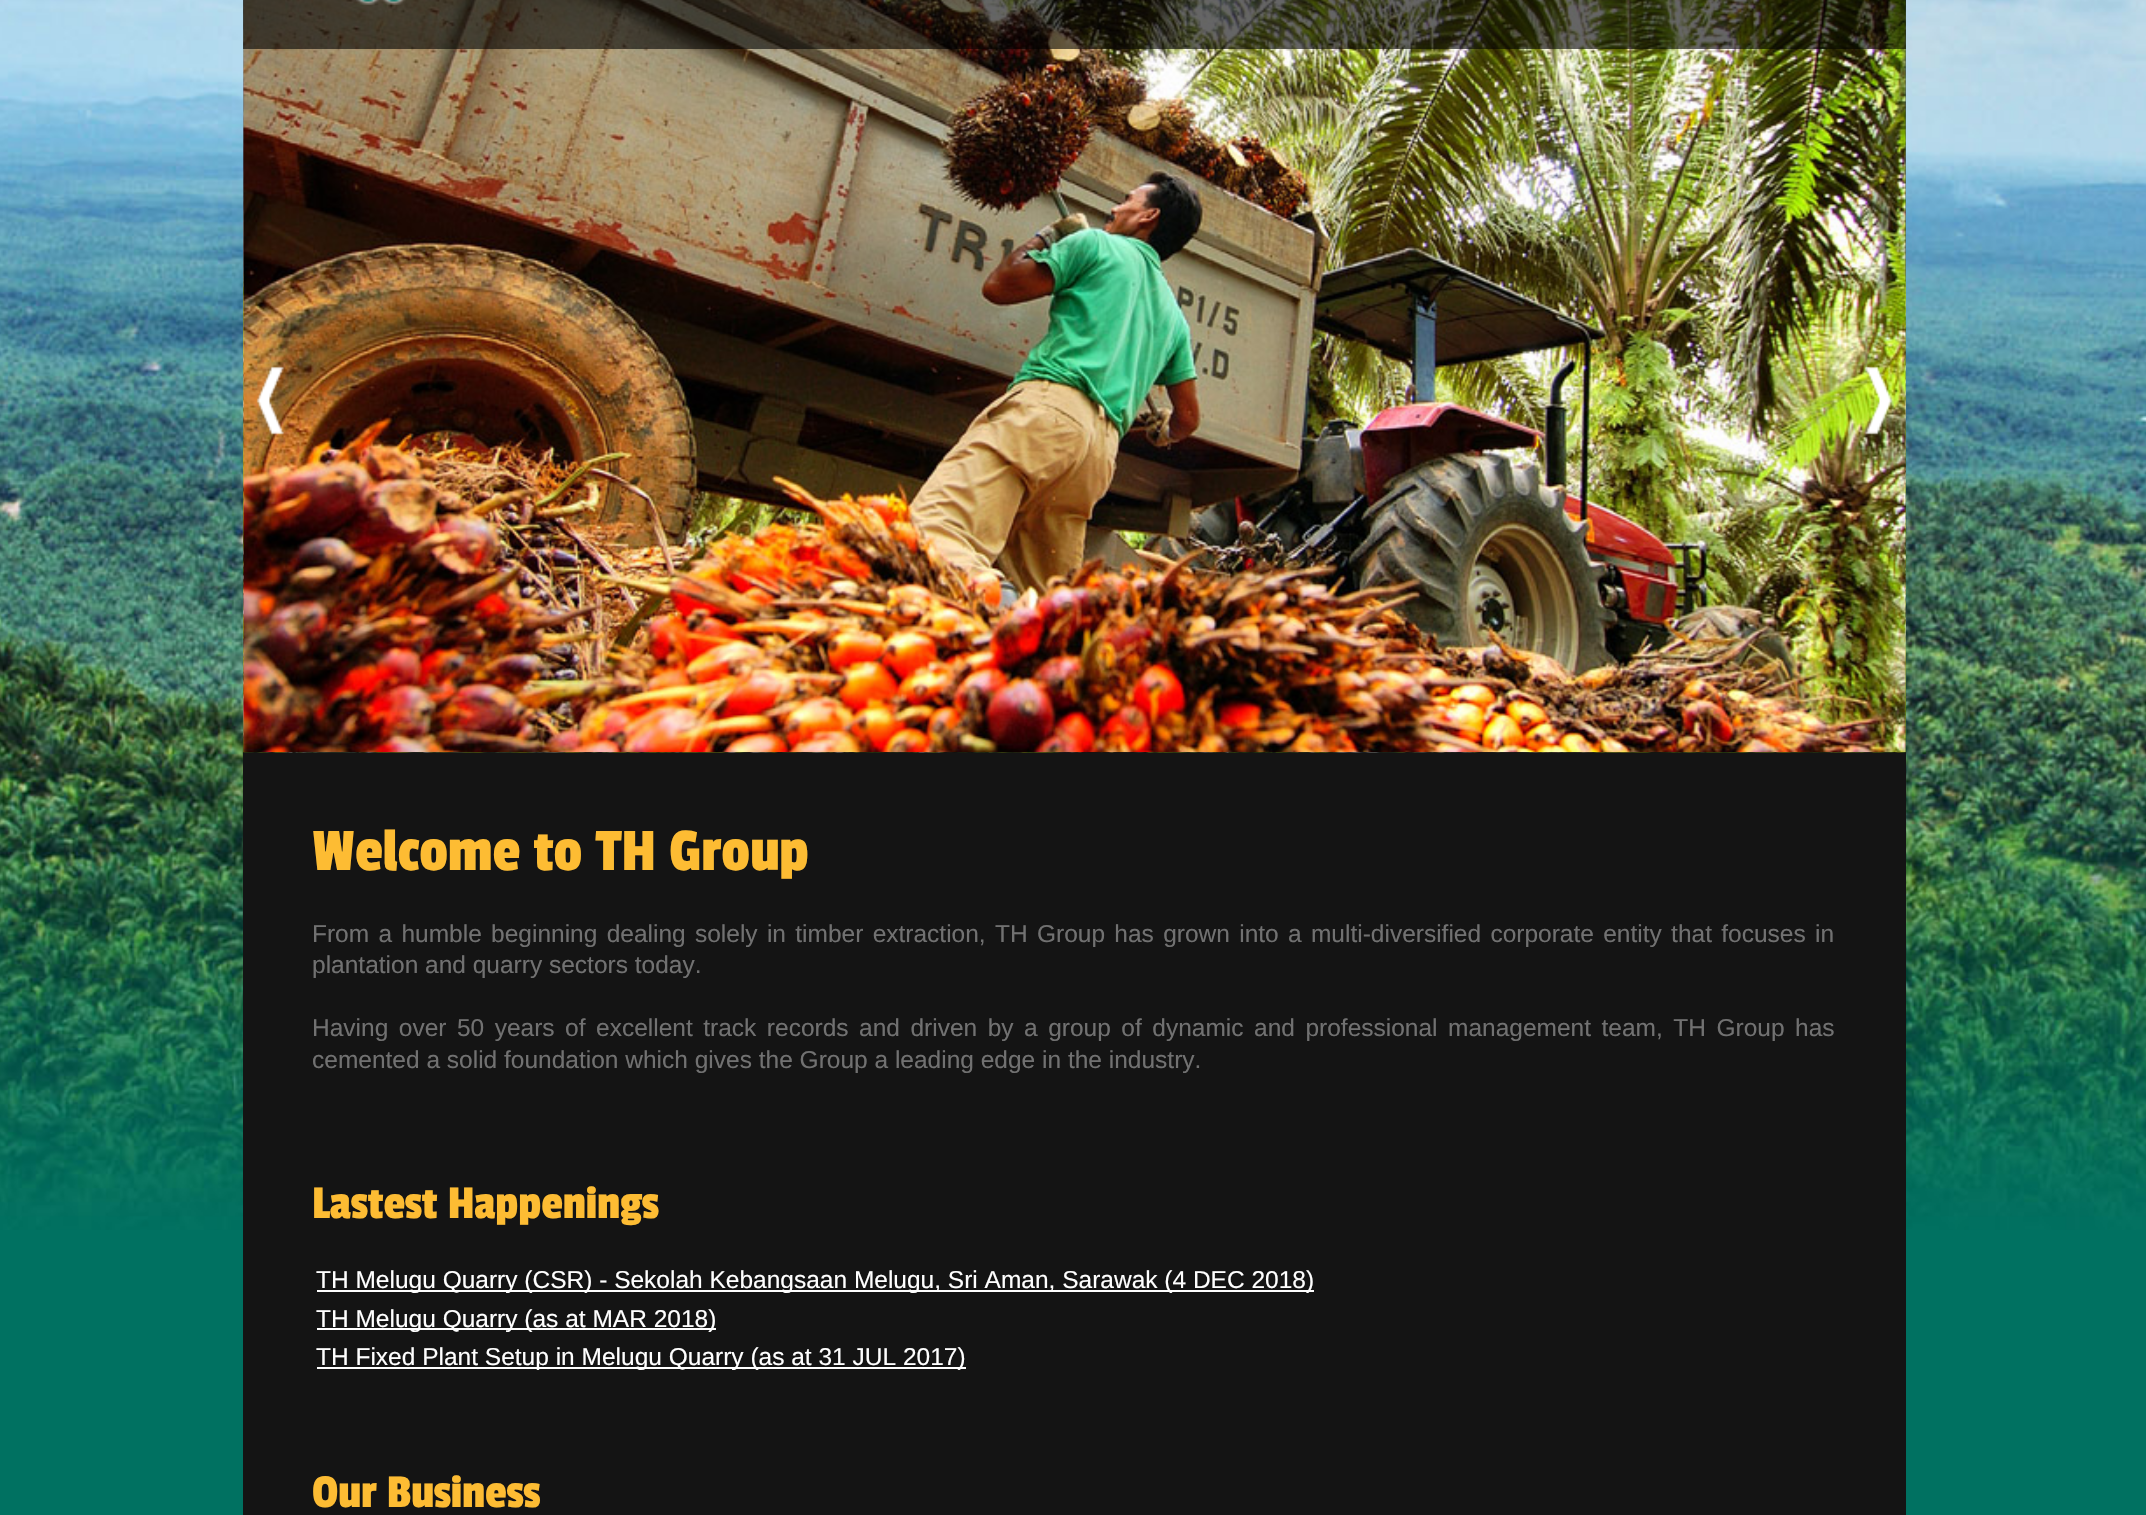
#include "include/core/SkBlurTypes.h"
#include "include/core/SkCanvas.h"
#include "include/core/SkData.h"
#include "include/core/SkFont.h"
#include "include/core/SkFontMgr.h"
#include "include/core/SkImage.h"
#include "include/core/SkMaskFilter.h"
#include "include/core/SkPaint.h"
#include "include/core/SkPathBuilder.h"
#include "include/core/SkTextBlob.h"
#include "include/effects/SkDashPathEffect.h"
#include "include/effects/SkGradientShader.h"
#include "include/utils/SkParsePath.h"

extern sk_sp<SkFontMgr> fontMgr;

static SkFont font(const char* family, int weight, float size, bool italic = false) {
    SkFontStyle style(weight, SkFontStyle::kNormal_Width,
        italic ? SkFontStyle::kItalic_Slant : SkFontStyle::kUpright_Slant);
    SkFont result(fontMgr->matchFamilyStyle(family, style), size);
    result.setSubpixel(true);
    return result;
}

static void drawLabel(SkCanvas* canvas, const char* s, float x, float y, const SkFont& font, SkColor color) {
    SkPaint ink(SkColor4f::FromColor(color));
    ink.setAntiAlias(true);
    canvas->drawString(s, x, y, font, ink);
}

static void drawTracked(SkCanvas* canvas, const char* s, float x, float y, const SkFont& font, const SkPaint& ink, float letter, float word) {
    std::vector<SkGlyphID> glyphs(font.countText(s, strlen(s), SkTextEncoding::kUTF8));
    std::vector<float> xs(glyphs.size());
    font.textToGlyphs(s, strlen(s), SkTextEncoding::kUTF8, glyphs);
    font.getXPos(glyphs, xs, x);
    float extra = 0;
    for (size_t i = 0; i < glyphs.size(); i++) {
        xs[i] += extra;
        extra += letter + word * (glyphs[i] == font.unicharToGlyph(' '));
    }
    canvas->drawTextBlob(SkTextBlob::MakeFromPosHGlyphs(glyphs, xs, y, font), 0, 0, ink);
}

static void fillRect(SkCanvas* canvas, float x, float y, float w, float h, SkColor color) {
    SkPaint ink(SkColor4f::FromColor(color));
    ink.setAntiAlias(true);
    canvas->drawRect(SkRect::MakeXYWH(x, y, w, h), ink);
}

static void drawPhoto(SkCanvas* canvas, const char* path, float x, float y, float w, float h) {
    auto image = SkImages::DeferredFromEncodedData(SkData::MakeFromFileName(path));
    canvas->drawImageRect(image, SkRect::MakeXYWH(x, y, w, h), SkSamplingOptions());
}

void draw(SkCanvas* canvas) {
    SkPaint paint;
    paint.setAntiAlias(true);
    canvas->clear(0xFF007161);
    drawPhoto(canvas, "assets/img1.png", 0, 0, 2146, 1230);
    fillRect(canvas, 243, 752, 1663, 763, 0xFF141414);
    drawPhoto(canvas, "assets/img2.png", 243, 0, 1663, 753);
    drawPhoto(canvas, "assets/img3.png", 243, 0, 1663, 753);
    fillRect(canvas, 243, 0, 1663, 49, 0x99000000);
    drawPhoto(canvas, "assets/img4.png", 356, 0, 50, 5);
    drawPhoto(canvas, "assets/img5.png", 256, 366, 28, 69);
    drawPhoto(canvas, "assets/img6.png", 1865, 366, 28, 69);
    SkFont font1 = font("Passion One", 400, 63);
    drawLabel(canvas, "Welcome to TH Group", 312, 870, font1, 0xFFFDBC33);
    SkFont font2 = font("Liberation Sans", 400, 24.5f);
    paint.setColor(0xFF717171);
    drawTracked(canvas, "From a humble beginning dealing solely in timber extraction, TH Group has grown into a multi-diversified corporate entity that focuses in", 312, 942, font2, paint, 0, 2.5f);
    drawLabel(canvas, "plantation and quarry sectors today.", 312, 973, font2, 0xFF717171);
    drawTracked(canvas, "Having over 50 years of excellent track records and driven by a group of dynamic and professional management team, TH Group has", 312, 1036, font2, paint, 0, 3.7f);
    drawLabel(canvas, "cemented a solid foundation which gives the Group a leading edge in the industry.", 312, 1068, font2, 0xFF717171);
    SkFont font3 = font("Passion One", 400, 49);
    drawLabel(canvas, "Lastest Happenings", 312, 1218, font3, 0xFFFDBC33);
    fillRect(canvas, 317, 1290, 997, 2, 0xFFFFFFFF);
    drawLabel(canvas, "TH Melugu Quarry (CSR) - Sekolah Kebangsaan Melugu, Sri Aman, Sarawak (4 DEC 2018)", 316, 1288, font2, 0xFFFFFFFF);
    fillRect(canvas, 317, 1328, 399, 2, 0xFFFFFFFF);
    drawLabel(canvas, "TH Melugu Quarry (as at MAR 2018)", 316, 1327, font2, 0xFFFFFFFF);
    fillRect(canvas, 317, 1367, 649, 2, 0xFFFFFFFF);
    drawLabel(canvas, "TH Fixed Plant Setup in Melugu Quarry (as at 31 JUL 2017)", 316, 1365, font2, 0xFFFFFFFF);
    drawLabel(canvas, "Our Business", 312, 1507, font3, 0xFFFDBC33);
}
